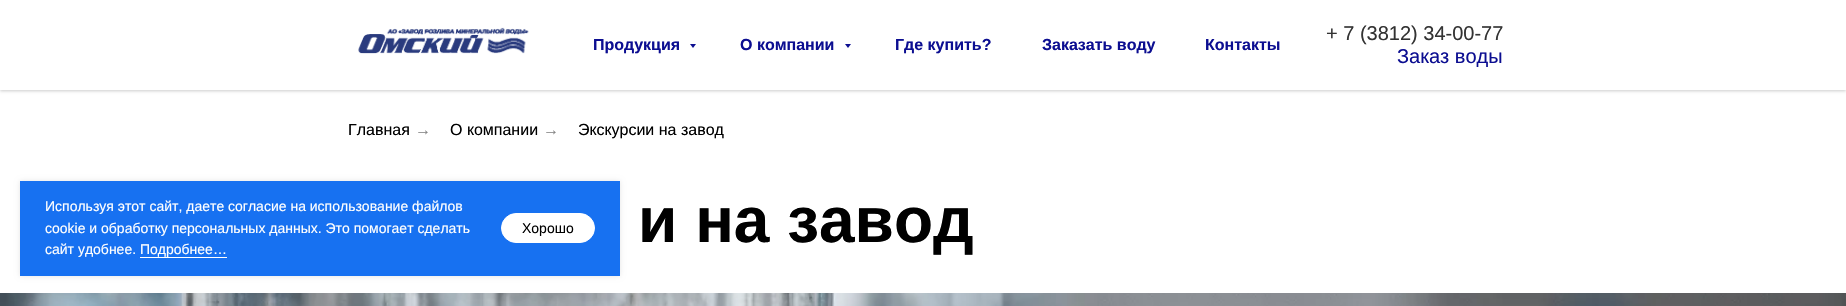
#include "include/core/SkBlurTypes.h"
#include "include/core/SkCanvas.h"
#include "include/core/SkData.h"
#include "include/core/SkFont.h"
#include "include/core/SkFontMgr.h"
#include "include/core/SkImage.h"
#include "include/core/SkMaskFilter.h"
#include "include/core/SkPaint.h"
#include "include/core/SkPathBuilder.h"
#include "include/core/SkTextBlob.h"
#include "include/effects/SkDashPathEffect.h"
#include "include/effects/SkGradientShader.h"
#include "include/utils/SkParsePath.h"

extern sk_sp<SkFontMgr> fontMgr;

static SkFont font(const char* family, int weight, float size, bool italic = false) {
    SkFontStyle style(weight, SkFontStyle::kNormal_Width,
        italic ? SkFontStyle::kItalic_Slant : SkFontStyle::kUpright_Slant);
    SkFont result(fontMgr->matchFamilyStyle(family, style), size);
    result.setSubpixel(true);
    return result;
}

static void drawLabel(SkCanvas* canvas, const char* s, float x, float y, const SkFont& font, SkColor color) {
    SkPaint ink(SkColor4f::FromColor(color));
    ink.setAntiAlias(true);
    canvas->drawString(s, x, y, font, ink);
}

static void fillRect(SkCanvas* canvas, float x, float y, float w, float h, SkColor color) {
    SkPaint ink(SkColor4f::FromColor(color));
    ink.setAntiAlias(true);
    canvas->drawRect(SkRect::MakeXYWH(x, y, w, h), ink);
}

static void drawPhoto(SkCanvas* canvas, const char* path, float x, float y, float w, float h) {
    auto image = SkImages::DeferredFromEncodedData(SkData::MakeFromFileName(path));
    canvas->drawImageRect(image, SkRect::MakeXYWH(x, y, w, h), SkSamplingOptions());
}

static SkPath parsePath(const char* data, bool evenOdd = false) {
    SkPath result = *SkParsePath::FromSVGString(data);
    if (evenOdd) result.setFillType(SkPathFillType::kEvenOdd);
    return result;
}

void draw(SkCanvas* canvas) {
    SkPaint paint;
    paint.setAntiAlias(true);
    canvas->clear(0xFFFFFFFF);
    paint.setColor(0x33000000);
    paint.setMaskFilter(SkMaskFilter::MakeBlur(kNormal_SkBlurStyle, 1.5f));
    canvas->drawRect(SkRect::MakeXYWH(0, 1, 1846, 90), paint);
    paint.setMaskFilter(nullptr);
    fillRect(canvas, 0, 0, 1846, 90, 0xFFFFFFFF);
    drawPhoto(canvas, "assets/img1.png", 358, 27, 171, 27);
    SkFont font1 = font("Liberation Sans", 700, 16);
    drawLabel(canvas, "Продукция", 593, 50, font1, 0xFF0C0E91);
    paint.setColor(0xFF0C0E91);
    canvas->drawPath(parsePath("M690 44H696L693 48Z"), paint);
    drawLabel(canvas, "О компании", 740, 50, font1, 0xFF0C0E91);
    canvas->drawPath(parsePath("M845 44H851L848 48Z"), paint);
    drawLabel(canvas, "Где купить?", 895, 50, font1, 0xFF0C0E91);
    drawLabel(canvas, "Заказать воду", 1042, 50, font1, 0xFF0C0E91);
    drawLabel(canvas, "Контакты", 1205, 50, font1, 0xFF0C0E91);
    SkFont font2 = font("Liberation Sans", 400, 20);
    drawLabel(canvas, "+ 7 (3812) 34-00-77", 1326, 40, font2, 0xFF333333);
    drawLabel(canvas, "Заказ воды", 1397, 63, font2, 0xFF0C0E91);
    SkFont font3 = font("Liberation Sans", 400, 16);
    drawLabel(canvas, "Главная", 348, 135, font3, 0xFF000000);
    drawLabel(canvas, "→", 415, 135, font3, 0xFF858585);
    drawLabel(canvas, "О компании", 450, 135, font3, 0xFF000000);
    drawLabel(canvas, "→", 543, 135, font3, 0xFF858585);
    drawLabel(canvas, "Экскурсии на завод", 578, 135, font3, 0xFF000000);
    paint.setColor(0x1A000000);
    paint.setMaskFilter(SkMaskFilter::MakeBlur(kNormal_SkBlurStyle, 2.5f));
    canvas->drawRect(SkRect::MakeXYWH(20, 181, 600, 95), paint);
    paint.setMaskFilter(nullptr);
    fillRect(canvas, 20, 181, 600, 95, 0xFF1771F1);
    SkFont font4 = font("Liberation Sans", 400, 14);
    drawLabel(canvas, "Используя этот сайт, даете согласие на использование файлов", 45, 211, font4, 0xFFFFFFFF);
    drawLabel(canvas, "cookie и обработку персональных данных. Это помогает сделать", 45, 233, font4, 0xFFFFFFFF);
    drawLabel(canvas, "сайт удобнее. Подробнее…", 45, 254, font4, 0xFFFFFFFF);
    fillRect(canvas, 140, 257, 87, 1, 0xFFFFFFFF);
    paint.setColor(0xFFFFFFFF);
    canvas->drawRoundRect(SkRect::MakeXYWH(501.5f, 213.5f, 93, 29), 14.5f, 14.5f, paint);
    paint.setStroke(true);
    paint.setStrokeWidth(1);
    canvas->drawRoundRect(SkRect::MakeXYWH(501.5f, 213.5f, 93, 29), 14.5f, 14.5f, paint);
    drawLabel(canvas, "Хорошо", 522, 233, font4, 0xFF000000);
    SkFont font5 = font("Liberation Sans", 700, 64);
    drawLabel(canvas, "и на завод", 638, 242, font5, 0xFF000000);
    drawPhoto(canvas, "assets/img2.png", 0, 293, 1846, 13);
}
